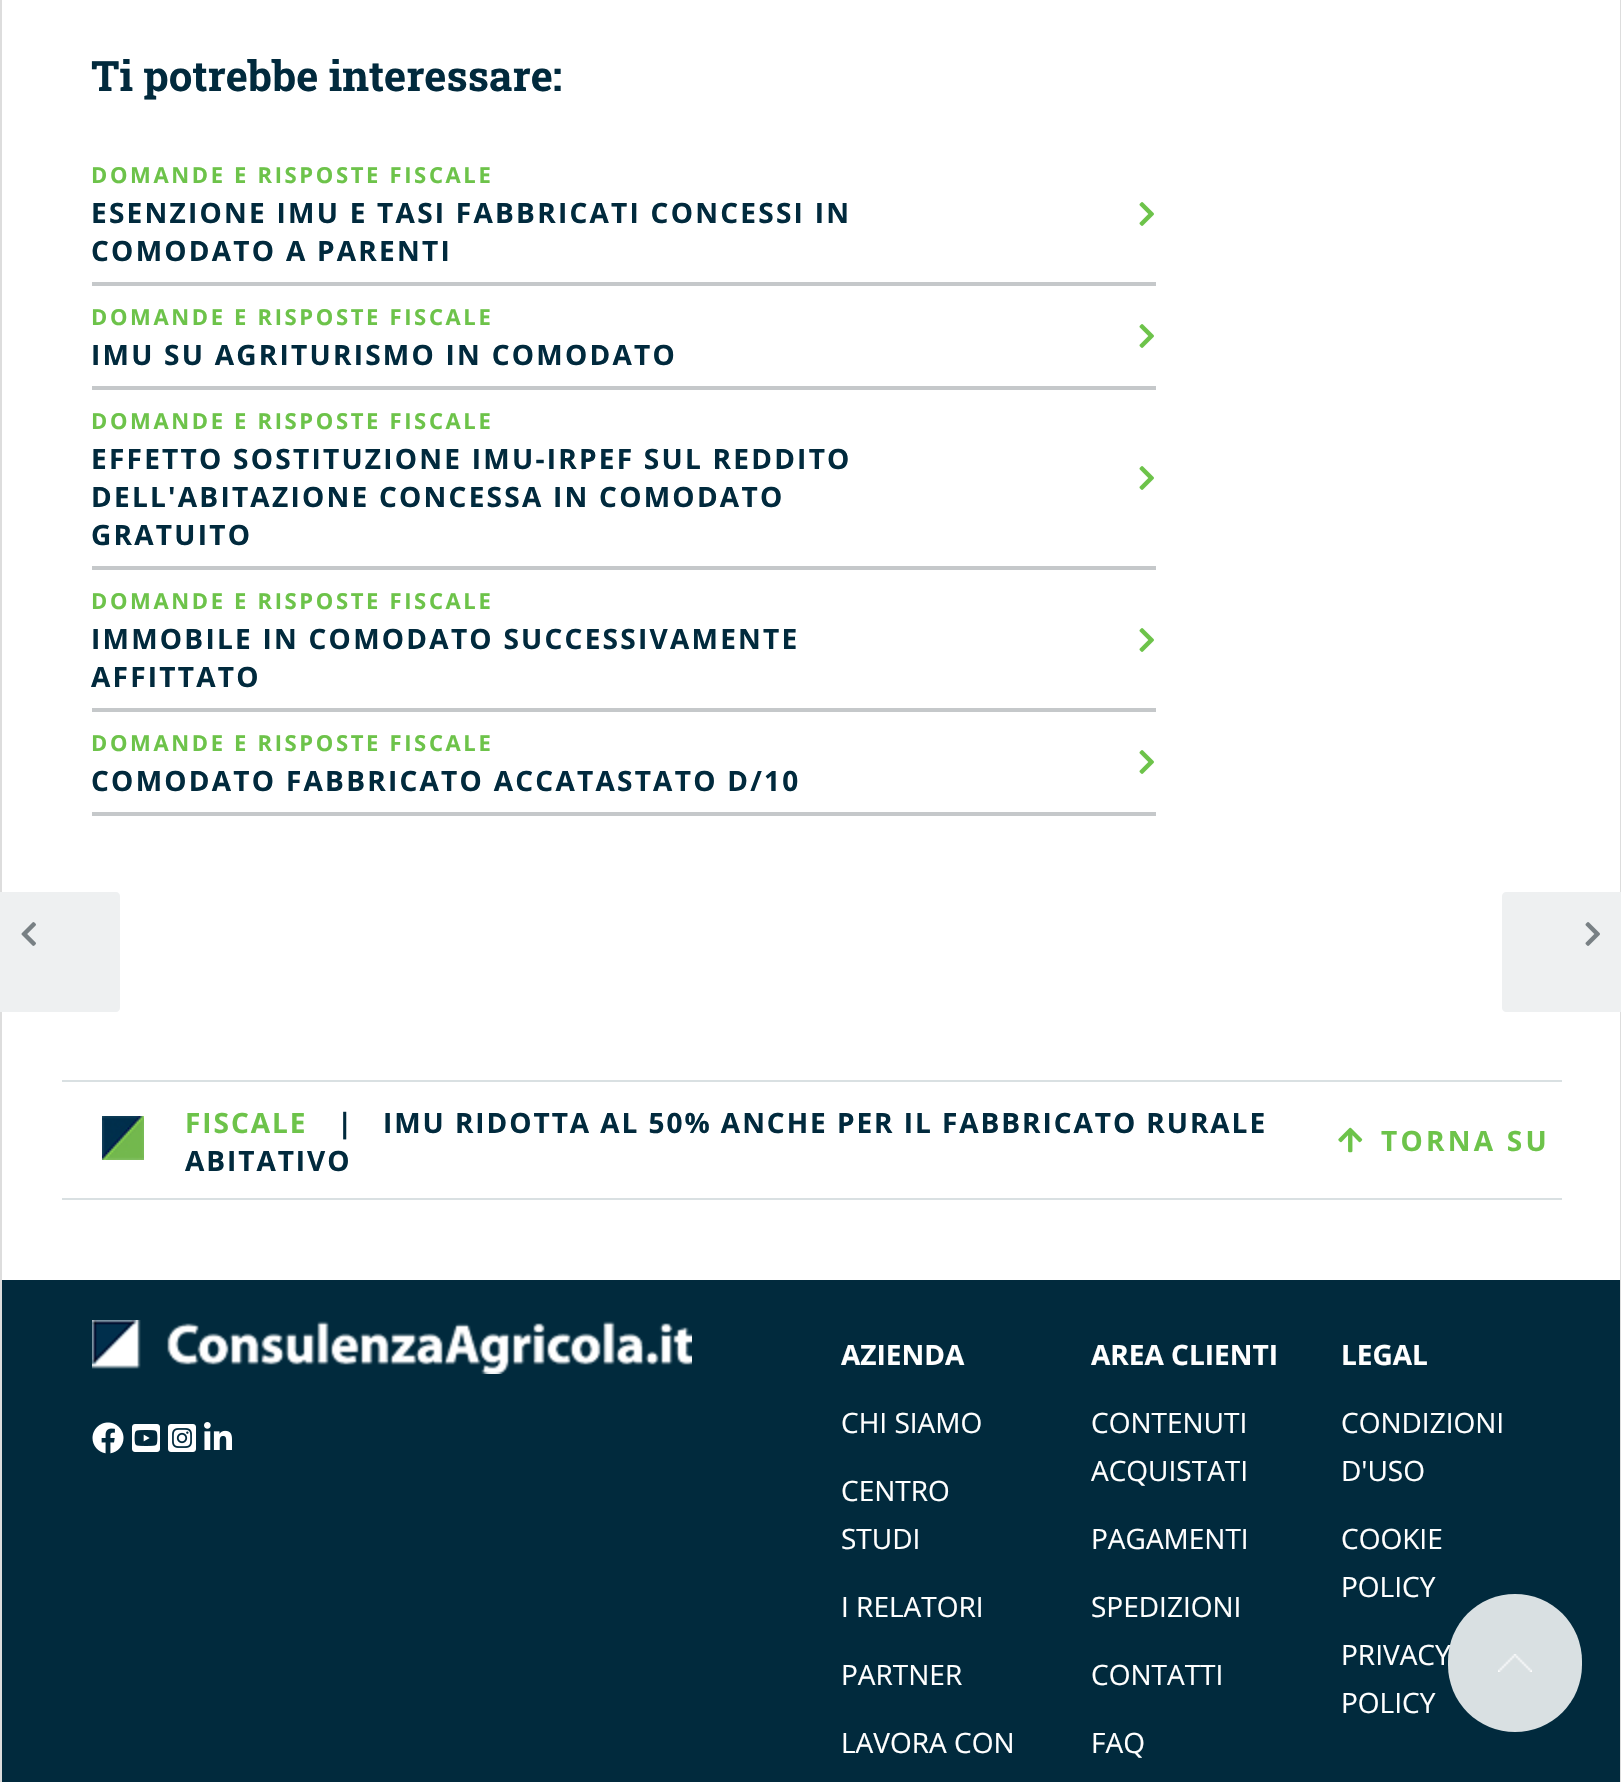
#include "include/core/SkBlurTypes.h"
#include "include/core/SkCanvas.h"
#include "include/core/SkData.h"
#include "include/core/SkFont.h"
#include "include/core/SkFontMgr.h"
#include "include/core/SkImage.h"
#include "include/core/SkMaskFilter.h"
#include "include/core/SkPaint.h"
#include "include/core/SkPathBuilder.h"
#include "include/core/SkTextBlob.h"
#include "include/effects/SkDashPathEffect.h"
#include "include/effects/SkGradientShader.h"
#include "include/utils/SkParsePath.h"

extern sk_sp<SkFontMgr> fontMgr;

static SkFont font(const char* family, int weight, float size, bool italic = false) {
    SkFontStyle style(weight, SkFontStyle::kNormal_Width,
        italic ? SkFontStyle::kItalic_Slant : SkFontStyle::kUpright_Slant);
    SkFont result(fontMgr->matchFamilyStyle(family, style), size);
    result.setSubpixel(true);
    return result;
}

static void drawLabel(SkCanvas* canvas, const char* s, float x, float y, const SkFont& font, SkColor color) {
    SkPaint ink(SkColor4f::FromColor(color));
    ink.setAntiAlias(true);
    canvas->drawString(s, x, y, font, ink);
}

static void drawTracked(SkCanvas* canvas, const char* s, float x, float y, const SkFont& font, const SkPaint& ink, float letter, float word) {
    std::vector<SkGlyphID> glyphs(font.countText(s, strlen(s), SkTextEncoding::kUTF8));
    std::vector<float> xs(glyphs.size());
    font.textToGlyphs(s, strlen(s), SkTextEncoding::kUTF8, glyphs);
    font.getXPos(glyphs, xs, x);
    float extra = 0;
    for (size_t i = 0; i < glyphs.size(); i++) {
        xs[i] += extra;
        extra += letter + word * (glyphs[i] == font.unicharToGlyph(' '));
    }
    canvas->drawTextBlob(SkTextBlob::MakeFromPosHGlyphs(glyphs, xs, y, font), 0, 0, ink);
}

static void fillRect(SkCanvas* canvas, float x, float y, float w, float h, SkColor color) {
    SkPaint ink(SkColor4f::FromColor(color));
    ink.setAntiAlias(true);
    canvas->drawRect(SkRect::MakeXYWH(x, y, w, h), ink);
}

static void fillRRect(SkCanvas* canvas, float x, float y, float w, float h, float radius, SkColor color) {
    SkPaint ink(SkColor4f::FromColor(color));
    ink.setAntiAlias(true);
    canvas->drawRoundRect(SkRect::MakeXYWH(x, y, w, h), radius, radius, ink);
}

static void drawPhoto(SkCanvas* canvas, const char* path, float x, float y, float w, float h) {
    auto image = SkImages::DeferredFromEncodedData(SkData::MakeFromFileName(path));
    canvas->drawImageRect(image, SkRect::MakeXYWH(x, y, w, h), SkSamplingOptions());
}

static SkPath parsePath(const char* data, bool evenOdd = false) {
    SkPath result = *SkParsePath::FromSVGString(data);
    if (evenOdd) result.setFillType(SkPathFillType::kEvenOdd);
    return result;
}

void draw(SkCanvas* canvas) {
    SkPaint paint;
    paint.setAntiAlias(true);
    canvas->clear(0xFFFFFFFF);
    paint.setStroke(true);
    paint.setStrokeWidth(2);
    paint.setColor(0xFFDDDDDD);
    canvas->drawRect(SkRect::MakeXYWH(1, -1, 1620, 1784), paint);
    SkFont font1 = font("Roboto Slab", 700, 42);
    drawLabel(canvas, "Ti potrebbe interessare:", 91, 91, font1, 0xFF012A3D);
    SkFont font2 = font("Open Sans", 700, 22);
    paint.setStroke(false);
    paint.setColor(0xFF6DC34A);
    drawTracked(canvas, "DOMANDE E RISPOSTE FISCALE", 91, 183, font2, paint, 2.65f, 0);
    SkFont font3 = font("Open Sans", 700, 28);
    paint.setColor(0xFF012A3D);
    drawTracked(canvas, "ESENZIONE IMU E TASI FABBRICATI CONCESSI IN", 91, 223, font3, paint, 2.25f, 0);
    drawTracked(canvas, "COMODATO A PARENTI", 91, 261, font3, paint, 2.25f, 0);
    drawPhoto(canvas, "assets/img1.png", 1139, 202, 15, 24);
    fillRect(canvas, 92, 282, 1064, 4, 0xFFC5C8CA);
    paint.setColor(0xFF6DC34A);
    drawTracked(canvas, "DOMANDE E RISPOSTE FISCALE", 91, 325, font2, paint, 2.65f, 0);
    paint.setColor(0xFF012A3D);
    drawTracked(canvas, "IMU SU AGRITURISMO IN COMODATO", 91, 365, font3, paint, 2.25f, 0);
    drawPhoto(canvas, "assets/img1.png", 1139, 324, 15, 24);
    fillRect(canvas, 92, 386, 1064, 4, 0xFFC5C8CA);
    paint.setColor(0xFF6DC34A);
    drawTracked(canvas, "DOMANDE E RISPOSTE FISCALE", 91, 429, font2, paint, 2.65f, 0);
    paint.setColor(0xFF012A3D);
    drawTracked(canvas, "EFFETTO SOSTITUZIONE IMU-IRPEF SUL REDDITO", 91, 469, font3, paint, 2.25f, 0);
    drawTracked(canvas, "DELL'ABITAZIONE CONCESSA IN COMODATO", 91, 507, font3, paint, 2.25f, 0);
    drawTracked(canvas, "GRATUITO", 91, 545, font3, paint, 2.25f, 0);
    drawPhoto(canvas, "assets/img1.png", 1139, 466, 15, 24);
    fillRect(canvas, 92, 566, 1064, 4, 0xFFC5C8CA);
    paint.setColor(0xFF6DC34A);
    drawTracked(canvas, "DOMANDE E RISPOSTE FISCALE", 91, 609, font2, paint, 2.65f, 0);
    paint.setColor(0xFF012A3D);
    drawTracked(canvas, "IMMOBILE IN COMODATO SUCCESSIVAMENTE", 91, 649, font3, paint, 2.25f, 0);
    drawTracked(canvas, "AFFITTATO", 91, 687, font3, paint, 2.25f, 0);
    drawPhoto(canvas, "assets/img1.png", 1139, 628, 15, 24);
    fillRect(canvas, 92, 708, 1064, 4, 0xFFC5C8CA);
    paint.setColor(0xFF6DC34A);
    drawTracked(canvas, "DOMANDE E RISPOSTE FISCALE", 91, 751, font2, paint, 2.65f, 0);
    paint.setColor(0xFF012A3D);
    drawTracked(canvas, "COMODATO FABBRICATO ACCATASTATO D/10", 91, 791, font3, paint, 2.25f, 0);
    drawPhoto(canvas, "assets/img1.png", 1139, 750, 15, 24);
    fillRect(canvas, 92, 812, 1064, 4, 0xFFC5C8CA);
    paint.setColor(0xFFEEF0F1);
    canvas->drawPath(parsePath("M0 892H116C118 892 120 894 120 896V1008C120 1010 118 1012 116 1012H0Z"), paint);
    drawPhoto(canvas, "assets/img2.png", 21, 922, 15, 24);
    canvas->drawPath(parsePath("M1506 892H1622V1012H1506C1504 1012 1502 1010 1502 1008V896C1502 894 1504 892 1506 892Z"), paint);
    drawPhoto(canvas, "assets/img3.png", 1585, 922, 15, 24);
    fillRect(canvas, 62, 1080, 1500, 2, 0xFFD9E0E2);
    fillRect(canvas, 62, 1198, 1500, 2, 0xFFD9E0E2);
    drawPhoto(canvas, "assets/img4.png", 102, 1116, 42, 44);
    paint.setColor(0xFF6DC34A);
    drawTracked(canvas, "FISCALE", 185, 1133, font3, paint, 1.95f, 0);
    paint.setColor(0xFF012A3D);
    drawTracked(canvas, "|", 337, 1133, font3, paint, 1.95f, 0);
    drawTracked(canvas, "IMU RIDOTTA AL 50% ANCHE PER IL FABBRICATO RURALE", 383, 1133, font3, paint, 1.95f, 0);
    drawTracked(canvas, "ABITATIVO", 185, 1171, font3, paint, 1.95f, 0);
    drawPhoto(canvas, "assets/img5.png", 1338, 1127, 25, 26);
    paint.setColor(0xFF6DC34A);
    drawTracked(canvas, "TORNA SU", 1381, 1151, font3, paint, 3.25f, 0);
    fillRect(canvas, 2, 1280, 1618, 502, 0xFF012A3D);
    drawPhoto(canvas, "assets/img6.png", 92, 1320, 600, 54);
    drawPhoto(canvas, "assets/img7.png", 92, 1422, 32, 32);
    drawPhoto(canvas, "assets/img8.png", 132, 1424, 28, 28);
    drawPhoto(canvas, "assets/img9.png", 168, 1424, 28, 28);
    drawPhoto(canvas, "assets/img10.png", 204, 1422, 28, 28);
    drawLabel(canvas, "AZIENDA", 841, 1365, font3, 0xFFFFFFFF);
    SkFont font4 = font("Open Sans", 400, 28);
    drawLabel(canvas, "CHI SIAMO", 841, 1433, font4, 0xFFFFFFFF);
    drawLabel(canvas, "CENTRO", 841, 1501, font4, 0xFFFFFFFF);
    drawLabel(canvas, "STUDI", 841, 1549, font4, 0xFFFFFFFF);
    drawLabel(canvas, "I RELATORI", 841, 1617, font4, 0xFFFFFFFF);
    drawLabel(canvas, "PARTNER", 841, 1685, font4, 0xFFFFFFFF);
    drawLabel(canvas, "LAVORA CON", 841, 1753, font4, 0xFFFFFFFF);
    drawLabel(canvas, "AREA CLIENTI", 1091, 1365, font3, 0xFFFFFFFF);
    drawLabel(canvas, "CONTENUTI", 1091, 1433, font4, 0xFFFFFFFF);
    drawLabel(canvas, "ACQUISTATI", 1091, 1481, font4, 0xFFFFFFFF);
    drawLabel(canvas, "PAGAMENTI", 1091, 1549, font4, 0xFFFFFFFF);
    drawLabel(canvas, "SPEDIZIONI", 1091, 1617, font4, 0xFFFFFFFF);
    drawLabel(canvas, "CONTATTI", 1091, 1685, font4, 0xFFFFFFFF);
    drawLabel(canvas, "FAQ", 1091, 1753, font4, 0xFFFFFFFF);
    drawLabel(canvas, "LEGAL", 1341, 1365, font3, 0xFFFFFFFF);
    drawLabel(canvas, "CONDIZIONI", 1341, 1433, font4, 0xFFFFFFFF);
    drawLabel(canvas, "D'USO", 1341, 1481, font4, 0xFFFFFFFF);
    drawLabel(canvas, "COOKIE", 1341, 1549, font4, 0xFFFFFFFF);
    drawLabel(canvas, "POLICY", 1341, 1597, font4, 0xFFFFFFFF);
    drawLabel(canvas, "PRIVACY", 1341, 1665, font4, 0xFFFFFFFF);
    drawLabel(canvas, "POLICY", 1341, 1713, font4, 0xFFFFFFFF);
    fillRRect(canvas, 1448, 1594, 134, 138, 67, 0xFFD9E0E2);
    drawPhoto(canvas, "assets/img11.png", 1498, 1654, 34, 18);
}
